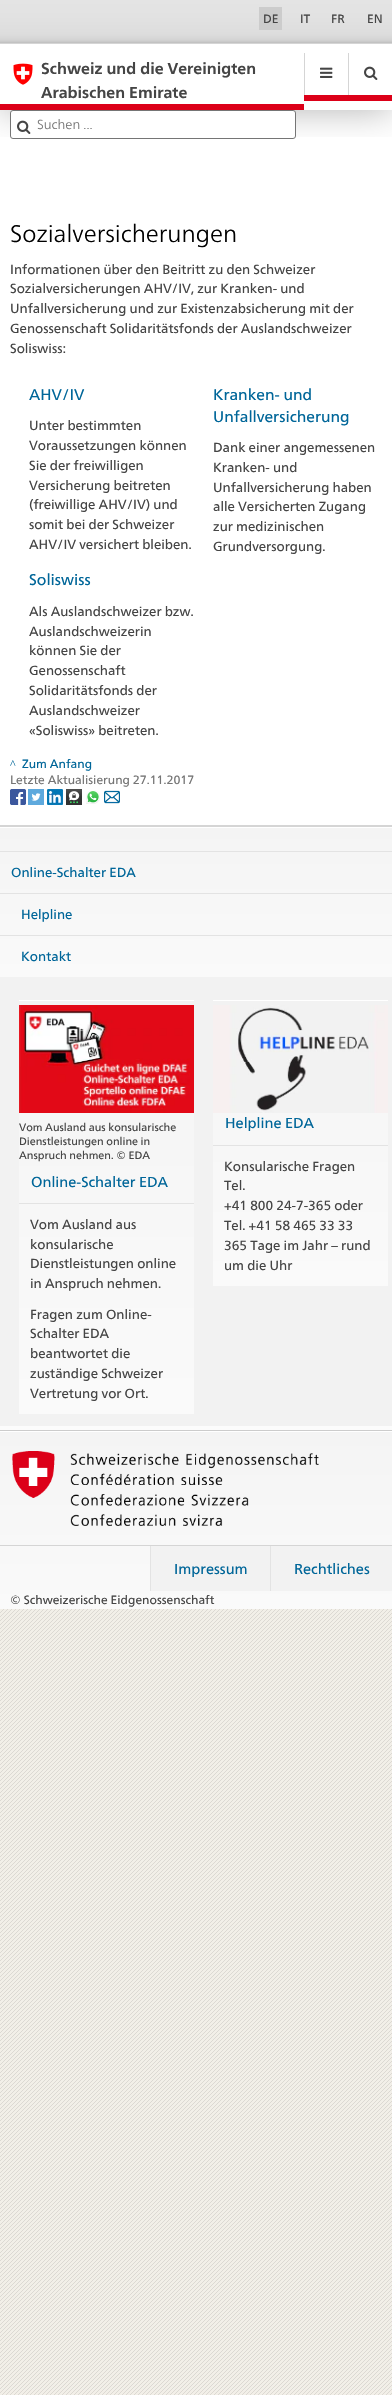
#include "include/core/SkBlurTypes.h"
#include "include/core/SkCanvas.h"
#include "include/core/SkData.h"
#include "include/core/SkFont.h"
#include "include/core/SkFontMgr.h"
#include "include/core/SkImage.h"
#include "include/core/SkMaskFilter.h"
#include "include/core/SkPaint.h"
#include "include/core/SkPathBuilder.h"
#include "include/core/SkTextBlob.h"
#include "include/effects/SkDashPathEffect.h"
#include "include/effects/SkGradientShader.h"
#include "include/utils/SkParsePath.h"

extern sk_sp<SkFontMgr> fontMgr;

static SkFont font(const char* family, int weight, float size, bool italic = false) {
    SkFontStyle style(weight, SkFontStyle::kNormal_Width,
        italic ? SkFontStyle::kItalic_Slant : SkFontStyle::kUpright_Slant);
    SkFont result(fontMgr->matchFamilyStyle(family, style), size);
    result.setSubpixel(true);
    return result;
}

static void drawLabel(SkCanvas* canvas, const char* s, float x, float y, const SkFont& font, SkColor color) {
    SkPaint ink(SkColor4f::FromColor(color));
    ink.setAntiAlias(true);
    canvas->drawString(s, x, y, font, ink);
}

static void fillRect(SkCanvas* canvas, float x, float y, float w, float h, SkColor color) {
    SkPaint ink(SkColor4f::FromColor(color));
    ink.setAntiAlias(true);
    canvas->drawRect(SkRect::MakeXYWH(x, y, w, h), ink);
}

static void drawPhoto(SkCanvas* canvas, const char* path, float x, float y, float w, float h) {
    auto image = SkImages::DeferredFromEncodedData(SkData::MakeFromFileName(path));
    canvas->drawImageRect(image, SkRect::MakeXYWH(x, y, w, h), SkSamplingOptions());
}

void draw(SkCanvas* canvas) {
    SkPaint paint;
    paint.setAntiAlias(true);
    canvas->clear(0xFFFFFFFF);
    drawPhoto(canvas, "assets/img1.png", 0, 1609, 392, 786);
    canvas->save();
    canvas->clipRect(SkRect::MakeXYWH(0, 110, 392, 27));
    paint.setColor(0x4D000000);
    paint.setMaskFilter(SkMaskFilter::MakeBlur(kNormal_SkBlurStyle, 18));
    canvas->drawRect(SkRect::MakeXYWH(0, 44, 392, 66), paint);
    paint.setMaskFilter(nullptr);
    canvas->restore();
    {
        const SkColor colors[] = {0xFFE4E4E4, 0xFFE2E2E2, 0xFFDDDDDD, 0xFFD5D5D5, 0xFFCFCFCF, 0xFFBEBEBE};
        const float stops[] = {0, 0.39f, 0.79f, 0.91f, 0.95f, 1};
        const SkPoint ends[] = {{196, 0}, {196, 43}};
        paint.setShader(SkGradientShader::MakeLinear(ends, colors, stops, 6, SkTileMode::kClamp));
        paint.setAlpha(255);
    }
    canvas->drawRect(SkRect::MakeXYWH(0, 0, 392, 43), paint);
    fillRect(canvas, 0, 43, 392, 1, 0xFFD5D5D5);
    fillRect(canvas, 259, 7, 23, 23, 0xFFCCCCCC);
    SkFont font1 = font("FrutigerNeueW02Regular", 400, 12);
    drawLabel(canvas, "DE", 263, 23, font1, 0xFF454545);
    drawLabel(canvas, "IT", 300, 23, font1, 0xFF454545);
    drawLabel(canvas, "FR", 331, 23, font1, 0xFF454545);
    drawLabel(canvas, "EN", 367, 23, font1, 0xFF454545);
    fillRect(canvas, 304, 95, 88, 6, 0xFFDC0018);
    fillRect(canvas, 304, 53, 1, 42, 0xFFD5D5D5);
    drawPhoto(canvas, "assets/img2.png", 320, 67, 13, 11);
    fillRect(canvas, 0, 104, 304, 6, 0xFFDC0018);
    drawPhoto(canvas, "assets/img3.png", 13, 63, 20, 22);
    SkFont font2 = font("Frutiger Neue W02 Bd", 700, 15.8f);
    drawLabel(canvas, "Schweiz und die Vereinigten", 41, 74, font2, 0xFF454545);
    drawLabel(canvas, "Arabischen Emirate", 41, 98, font2, 0xFF454545);
    fillRect(canvas, 348, 53, 1, 42, 0xFFD5D5D5);
    drawPhoto(canvas, "assets/img4.png", 364, 66, 14, 14);
    paint.setShader(nullptr);
    paint.setColor(0xFFFFFFFF);
    canvas->drawRoundRect(SkRect::MakeXYWH(10.5f, 110.5f, 285, 28), 2.5f, 2.5f, paint);
    paint.setStroke(true);
    paint.setStrokeWidth(1);
    paint.setColor(0xFF757575);
    canvas->drawRoundRect(SkRect::MakeXYWH(10.5f, 110.5f, 285, 28), 2.5f, 2.5f, paint);
    drawPhoto(canvas, "assets/img4.png", 17, 120, 14, 14);
    SkFont font3 = font("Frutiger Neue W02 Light", 300, 13.2f);
    drawLabel(canvas, "Suchen ...", 37, 129, font3, 0xFF757575);
    SkFont font4 = font("Frutiger Neue W02 Light", 300, 24);
    drawLabel(canvas, "Sozialversicherungen", 10, 242, font4, 0xFF000000);
    SkFont font5 = font("FrutigerNeueW02Regular", 400, 13.2f);
    drawLabel(canvas, "Informationen über den Beitritt zu den Schweizer", 10, 274, font5, 0xFF454545);
    drawLabel(canvas, "Sozialversicherungen AHV/IV, zur Kranken- und", 10, 293, font5, 0xFF454545);
    drawLabel(canvas, "Unfallversicherung und zur Existenzabsicherung mit der", 10, 313, font5, 0xFF454545);
    drawLabel(canvas, "Genossenschaft Solidaritätsfonds der Auslandschweizer", 10, 333, font5, 0xFF454545);
    drawLabel(canvas, "Soliswiss:", 10, 353, font5, 0xFF454545);
    SkFont font6 = font("FrutigerNeueW02Regular", 400, 15.5f);
    drawLabel(canvas, "AHV/IV", 29, 400, font6, 0xFF006699);
    drawLabel(canvas, "Unter bestimmten", 29, 430, font5, 0xFF454545);
    drawLabel(canvas, "Voraussetzungen können", 29, 450, font5, 0xFF454545);
    drawLabel(canvas, "Sie der freiwilligen", 29, 470, font5, 0xFF454545);
    drawLabel(canvas, "Versicherung beitreten", 29, 490, font5, 0xFF454545);
    drawLabel(canvas, "(freiwillige AHV/IV) und", 29, 509, font5, 0xFF454545);
    drawLabel(canvas, "somit bei der Schweizer", 29, 529, font5, 0xFF454545);
    drawLabel(canvas, "AHV/IV versichert bleiben.", 29, 549, font5, 0xFF454545);
    drawLabel(canvas, "Soliswiss", 29, 585, font6, 0xFF006699);
    drawLabel(canvas, "Als Auslandschweizer bzw.", 29, 616, font5, 0xFF454545);
    drawLabel(canvas, "Auslandschweizerin", 29, 636, font5, 0xFF454545);
    drawLabel(canvas, "können Sie der", 29, 655, font5, 0xFF454545);
    drawLabel(canvas, "Genossenschaft", 29, 675, font5, 0xFF454545);
    drawLabel(canvas, "Solidaritätsfonds der", 29, 695, font5, 0xFF454545);
    drawLabel(canvas, "Auslandschweizer", 29, 715, font5, 0xFF454545);
    drawLabel(canvas, "«Soliswiss» beitreten.", 29, 735, font5, 0xFF454545);
    drawLabel(canvas, "Kranken- und", 213, 400, font6, 0xFF006699);
    drawLabel(canvas, "Unfallversicherung", 213, 422, font6, 0xFF006699);
    drawLabel(canvas, "Dank einer angemessenen", 213, 452, font5, 0xFF454545);
    drawLabel(canvas, "Kranken- und", 213, 472, font5, 0xFF454545);
    drawLabel(canvas, "Unfallversicherung haben", 213, 492, font5, 0xFF454545);
    drawLabel(canvas, "alle Versicherten Zugang", 213, 511, font5, 0xFF454545);
    drawLabel(canvas, "zur medizinischen", 213, 531, font5, 0xFF454545);
    drawLabel(canvas, "Grundversorgung.", 213, 551, font5, 0xFF454545);
    SkFont font7 = font("Liberation Serif", 400, 12);
    drawLabel(canvas, "^", 10, 768, font7, 0xFF006699);
    drawLabel(canvas, "Zum Anfang", 22, 768, font1, 0xFF006699);
    drawLabel(canvas, "Letzte Aktualisierung 27.11.2017", 10, 784, font1, 0xFF757575);
    drawPhoto(canvas, "assets/img5.png", 10, 789, 16, 16);
    drawPhoto(canvas, "assets/img6.png", 28, 789, 16, 16);
    drawPhoto(canvas, "assets/img7.png", 47, 789, 16, 16);
    drawPhoto(canvas, "assets/img8.png", 66, 789, 16, 16);
    drawPhoto(canvas, "assets/img9.png", 86, 790, 14, 14);
    drawPhoto(canvas, "assets/img10.png", 104, 790, 16, 14);
    fillRect(canvas, 0, 977, 392, 449, 0xFFF2F2F2);
    fillRect(canvas, 0, 825, 392, 2, 0xFFD5D5D5);
    paint.setStroke(false);
    {
        const SkColor colors[] = {0xFFF4F4F4, 0xFFFAFAFA};
        const float stops[] = {0, 1};
        const SkPoint ends[] = {{196, 827}, {196, 977}};
        paint.setShader(SkGradientShader::MakeLinear(ends, colors, stops, 2, SkTileMode::kClamp));
        paint.setAlpha(255);
    }
    canvas->drawRect(SkRect::MakeXYWH(0, 828, 392, 149), paint);
    fillRect(canvas, 0, 851, 392, 1, 0xFFE3E3E3);
    drawLabel(canvas, "Online-Schalter EDA", 11, 877, font5, 0xFF006699);
    fillRect(canvas, 0, 893, 392, 1, 0xFFE3E3E3);
    drawLabel(canvas, "Helpline", 21, 919, font5, 0xFF006699);
    fillRect(canvas, 0, 935, 392, 1, 0xFFE3E3E3);
    drawLabel(canvas, "Kontakt", 21, 961, font5, 0xFF006699);
    {
        const SkColor colors[] = {0xFFF4F4F4, 0xFFFAFAFA};
        const float stops[] = {0, 1};
        const SkPoint ends[] = {{106, 989}, {107, 1414}};
        paint.setShader(SkGradientShader::MakeLinear(ends, colors, stops, 2, SkTileMode::kClamp));
        paint.setAlpha(255);
    }
    canvas->drawRect(SkRect::MakeXYWH(19, 1024, 175, 390), paint);
    drawPhoto(canvas, "assets/img11.png", 19, 1005, 175, 108);
    SkFont font8 = font("FrutigerNeueW02Regular", 400, 10.75f);
    drawLabel(canvas, "Vom Ausland aus konsularische", 19, 1131, font8, 0xFF454545);
    drawLabel(canvas, "Dienstleistungen online in", 19, 1145, font8, 0xFF454545);
    drawLabel(canvas, "Anspruch nehmen. © EDA", 19, 1159, font8, 0xFF454545);
    fillRect(canvas, 19, 1000, 175, 1, 0xFFFFFFFF);
    fillRect(canvas, 19, 1203, 175, 1, 0xFFE3E3E3);
    SkFont font9 = font("FrutigerNeueW02Regular", 400, 14.5f);
    drawLabel(canvas, "Online-Schalter EDA", 31, 1187, font9, 0xFF006699);
    drawLabel(canvas, "Vom Ausland aus", 30, 1229, font5, 0xFF454545);
    drawLabel(canvas, "konsularische", 30, 1249, font5, 0xFF454545);
    drawLabel(canvas, "Dienstleistungen online", 30, 1268, font5, 0xFF454545);
    drawLabel(canvas, "in Anspruch nehmen.", 30, 1288, font5, 0xFF454545);
    drawLabel(canvas, "Fragen zum Online-", 30, 1319, font5, 0xFF454545);
    drawLabel(canvas, "Schalter EDA", 30, 1338, font5, 0xFF454545);
    drawLabel(canvas, "beantwortet die", 30, 1358, font5, 0xFF454545);
    drawLabel(canvas, "zuständige Schweizer", 30, 1378, font5, 0xFF454545);
    drawLabel(canvas, "Vertretung vor Ort.", 30, 1398, font5, 0xFF454545);
    {
        const SkColor colors[] = {0xFFF4F4F4, 0xFFFAFAFA};
        const float stops[] = {0, 1};
        const SkPoint ends[] = {{301, 989}, {301, 1286}};
        paint.setShader(SkGradientShader::MakeLinear(ends, colors, stops, 2, SkTileMode::kClamp));
        paint.setAlpha(255);
    }
    canvas->drawRect(SkRect::MakeXYWH(213, 1014, 175, 272), paint);
    drawPhoto(canvas, "assets/img12.png", 213, 1005, 175, 108);
    fillRect(canvas, 213, 1000, 175, 1, 0xFFFFFFFF);
    fillRect(canvas, 213, 1145, 175, 1, 0xFFE3E3E3);
    drawLabel(canvas, "Helpline EDA", 225, 1128, font9, 0xFF006699);
    drawLabel(canvas, "Konsularische Fragen", 224, 1171, font5, 0xFF454545);
    drawLabel(canvas, "Tel.", 224, 1190, font5, 0xFF454545);
    drawLabel(canvas, "+41 800 24-7-365 oder", 224, 1210, font5, 0xFF454545);
    drawLabel(canvas, "Tel. +41 58 465 33 33", 224, 1230, font5, 0xFF454545);
    drawLabel(canvas, "365 Tage im Jahr – rund", 224, 1250, font5, 0xFF454545);
    drawLabel(canvas, "um die Uhr", 224, 1270, font5, 0xFF454545);
    fillRect(canvas, 0, 1426, 392, 4, 0xFFFCFCFC);
    fillRect(canvas, 0, 1430, 392, 1, 0xFFCCCCCC);
    {
        const SkColor colors[] = {0xFFF4F4F4, 0xFFFAFAFA};
        const float stops[] = {0, 1};
        const SkPoint ends[] = {{196, 1431}, {196, 1609}};
        paint.setShader(SkGradientShader::MakeLinear(ends, colors, stops, 2, SkTileMode::kClamp));
        paint.setAlpha(255);
    }
    canvas->drawRect(SkRect::MakeXYWH(0, 1432, 392, 177), paint);
    fillRect(canvas, 0, 1545, 392, 1, 0xFFD5D5D5);
    drawPhoto(canvas, "assets/img13.png", 12, 1451, 307, 75);
    fillRect(canvas, 151, 1546, 119, 45, 0xFFF2F2F2);
    fillRect(canvas, 150, 1546, 1, 45, 0xFFE3E3E3);
    drawLabel(canvas, "Impressum", 174, 1574, font9, 0xFF006699);
    fillRect(canvas, 271, 1546, 121, 45, 0xFFF2F2F2);
    fillRect(canvas, 270, 1546, 1, 45, 0xFFE3E3E3);
    drawLabel(canvas, "Rechtliches", 294, 1574, font9, 0xFF006699);
    drawLabel(canvas, "© Schweizerische Eidgenossenschaft", 10, 1604, font1, 0xFF454545);
}
